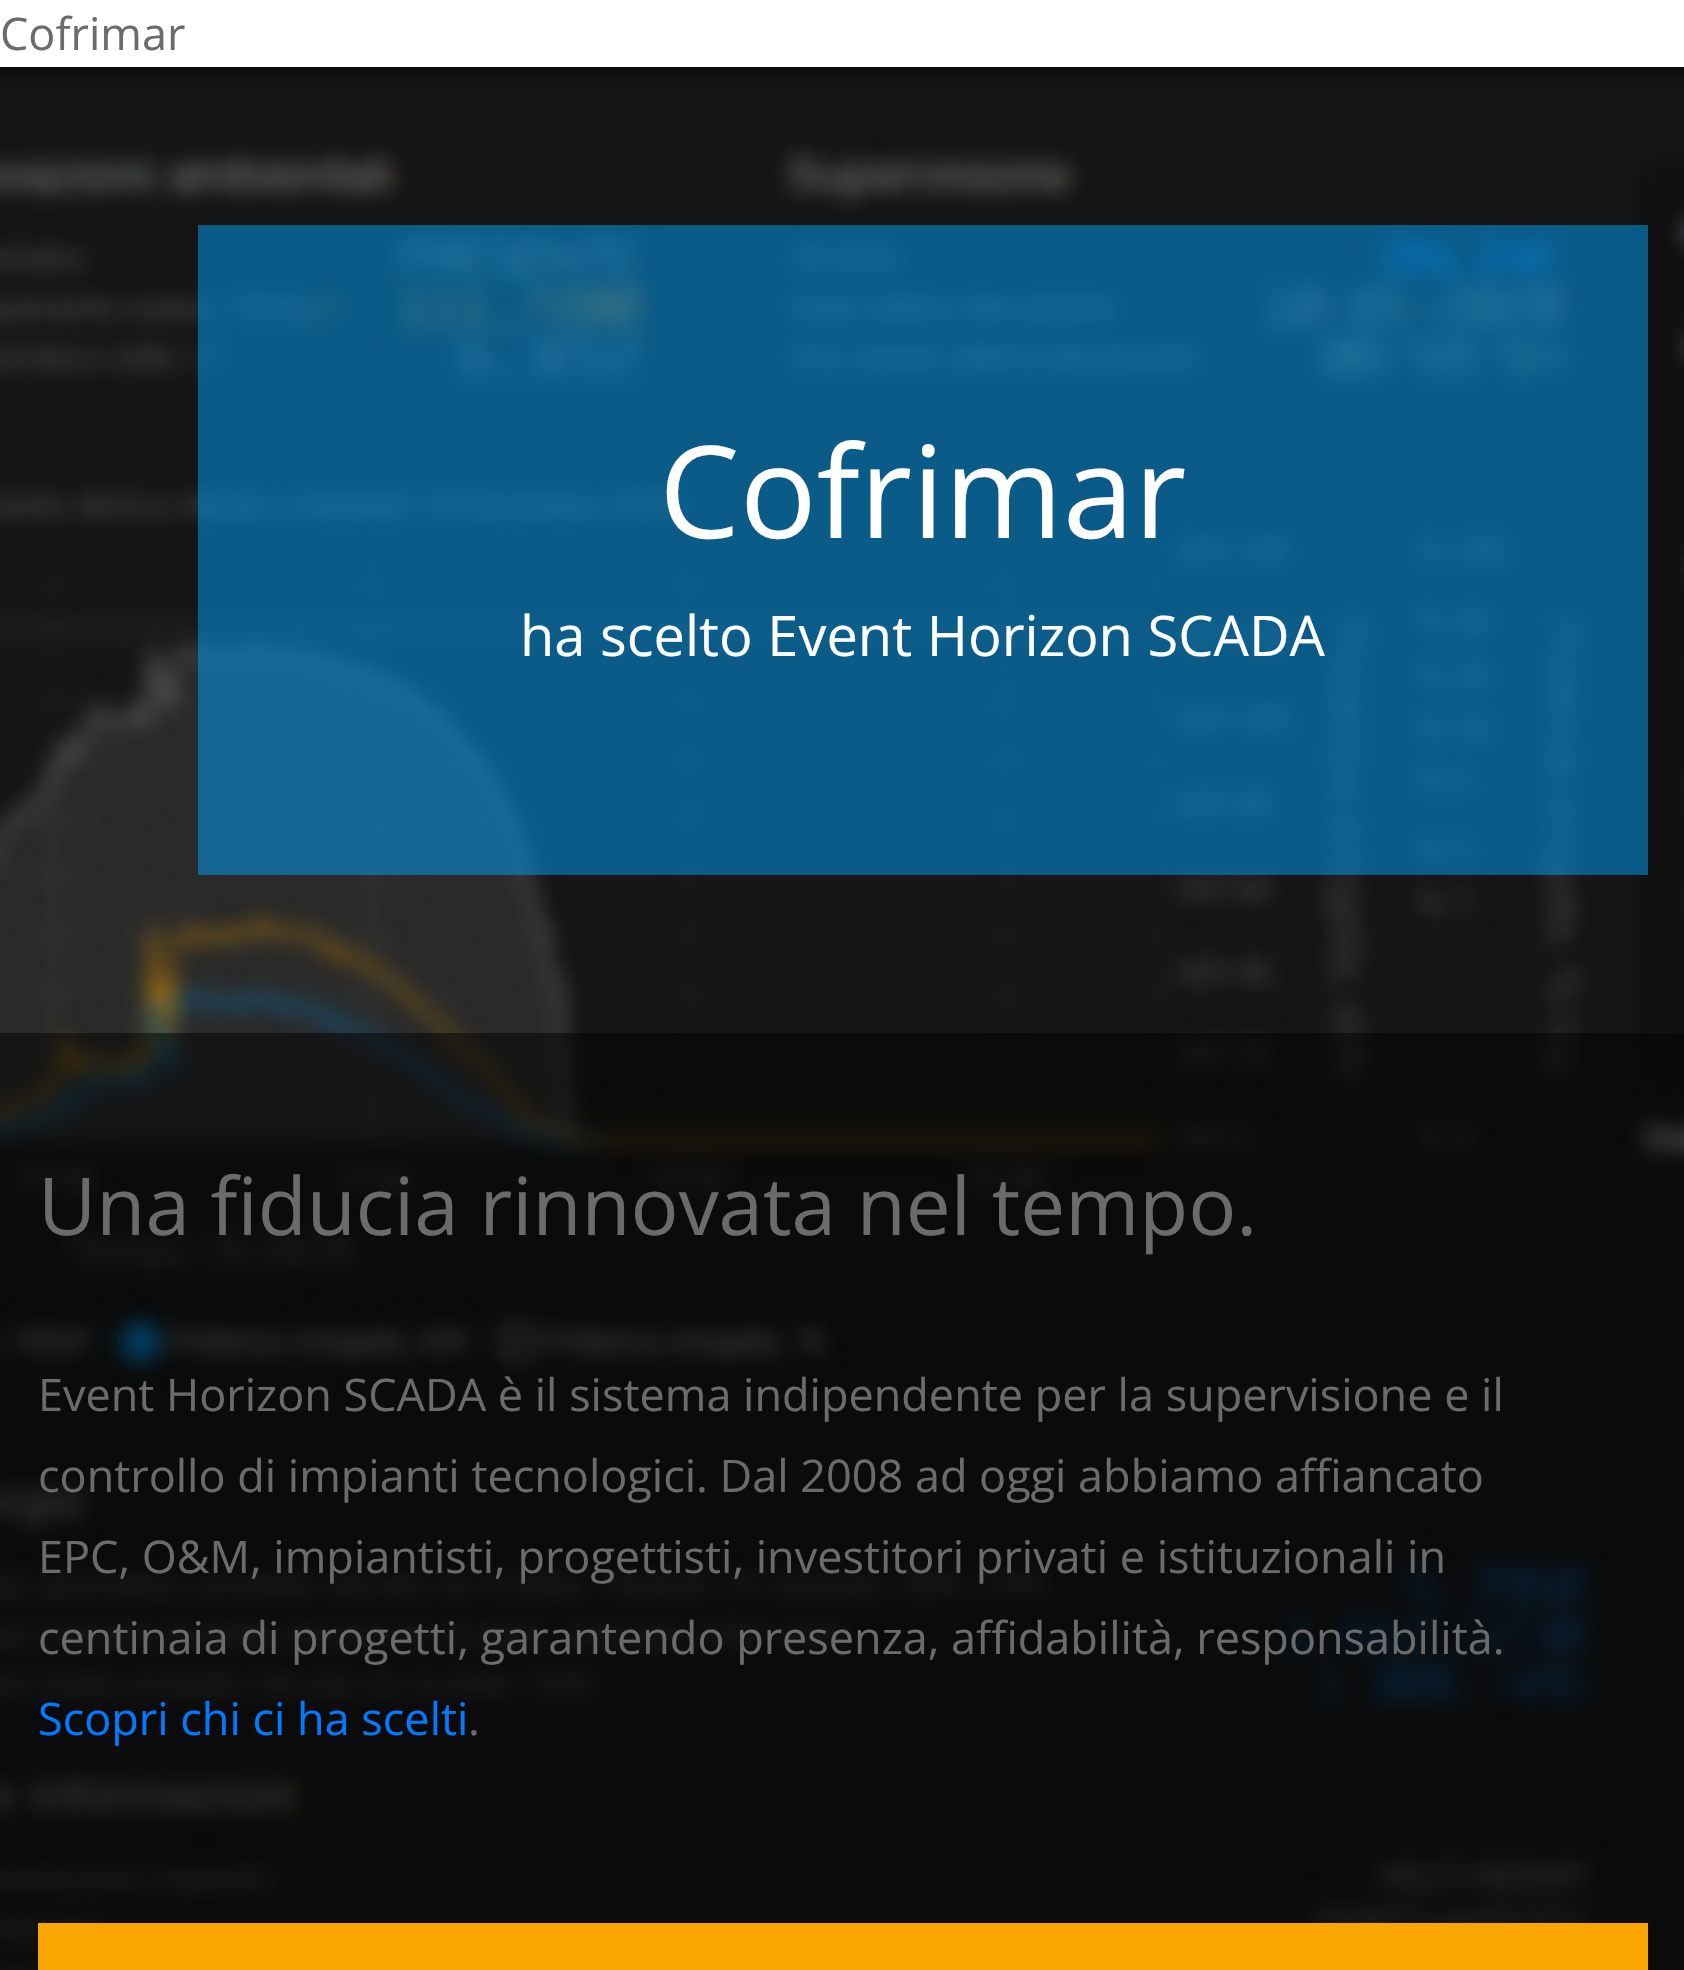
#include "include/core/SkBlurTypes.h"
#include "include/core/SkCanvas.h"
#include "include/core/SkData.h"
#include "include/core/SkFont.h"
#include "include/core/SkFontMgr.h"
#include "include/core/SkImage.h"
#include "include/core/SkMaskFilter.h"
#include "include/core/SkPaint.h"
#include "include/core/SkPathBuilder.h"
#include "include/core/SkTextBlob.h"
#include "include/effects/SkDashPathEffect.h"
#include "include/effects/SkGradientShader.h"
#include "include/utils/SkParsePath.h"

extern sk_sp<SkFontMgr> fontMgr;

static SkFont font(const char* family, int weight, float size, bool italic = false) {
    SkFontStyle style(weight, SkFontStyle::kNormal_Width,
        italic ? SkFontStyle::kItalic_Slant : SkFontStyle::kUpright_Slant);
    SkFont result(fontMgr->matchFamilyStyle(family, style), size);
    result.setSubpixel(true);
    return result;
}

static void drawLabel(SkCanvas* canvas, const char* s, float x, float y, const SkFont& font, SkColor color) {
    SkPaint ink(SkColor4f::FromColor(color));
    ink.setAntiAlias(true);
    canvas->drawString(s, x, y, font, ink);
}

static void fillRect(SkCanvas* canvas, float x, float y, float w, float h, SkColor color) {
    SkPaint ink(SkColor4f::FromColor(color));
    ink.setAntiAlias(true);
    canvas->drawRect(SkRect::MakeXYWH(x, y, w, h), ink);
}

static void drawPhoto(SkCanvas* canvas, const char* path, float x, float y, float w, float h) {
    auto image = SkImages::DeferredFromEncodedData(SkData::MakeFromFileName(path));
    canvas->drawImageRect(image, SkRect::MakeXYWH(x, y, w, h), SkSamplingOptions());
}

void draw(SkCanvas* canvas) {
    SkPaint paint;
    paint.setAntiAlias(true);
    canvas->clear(0xFFFFFFFF);
    SkFont font1 = font("Open Sans", 400, 45);
    drawLabel(canvas, "Cofrimar", 0, 50, font1, 0xFF6B6B6B);
    drawPhoto(canvas, "assets/img1.png", 0, 67, 1684, 1903);
    fillRect(canvas, 198, 225, 1450, 650, 0x80009FFA);
    SkFont font2 = font("Open Sans", 400, 128);
    drawLabel(canvas, "Cofrimar", 659, 538, font2, 0xFFFFFFFF);
    SkFont font3 = font("Open Sans", 400, 56);
    drawLabel(canvas, "ha scelto Event Horizon SCADA", 520, 656, font3, 0xFFFFFFFF);
    fillRect(canvas, 0, 1033, 1684, 937, 0x80000000);
    SkFont font4 = font("Open Sans", 400, 80);
    drawLabel(canvas, "Una fiducia rinnovata nel tempo.", 38, 1235, font4, 0xFF6B6B6B);
    drawLabel(canvas, "Event Horizon SCADA è il sistema indipendente per la supervisione e il", 38, 1411, font1, 0xFF6B6B6B);
    drawLabel(canvas, "controllo di impianti tecnologici. Dal 2008 ad oggi abbiamo affiancato", 38, 1492, font1, 0xFF6B6B6B);
    drawLabel(canvas, "EPC, O&M, impiantisti, progettisti, investitori privati e istituzionali in", 38, 1573, font1, 0xFF6B6B6B);
    drawLabel(canvas, "centinaia di progetti, garantendo presenza, affidabilità, responsabilità.", 38, 1654, font1, 0xFF6B6B6B);
    drawLabel(canvas, "Scopri chi ci ha scelti", 38, 1735, font1, 0xFF007BFF);
    drawLabel(canvas, ".", 468, 1735, font1, 0xFF6B6B6B);
    fillRect(canvas, 38, 1923, 1610, 47, 0xFFFAA500);
}
